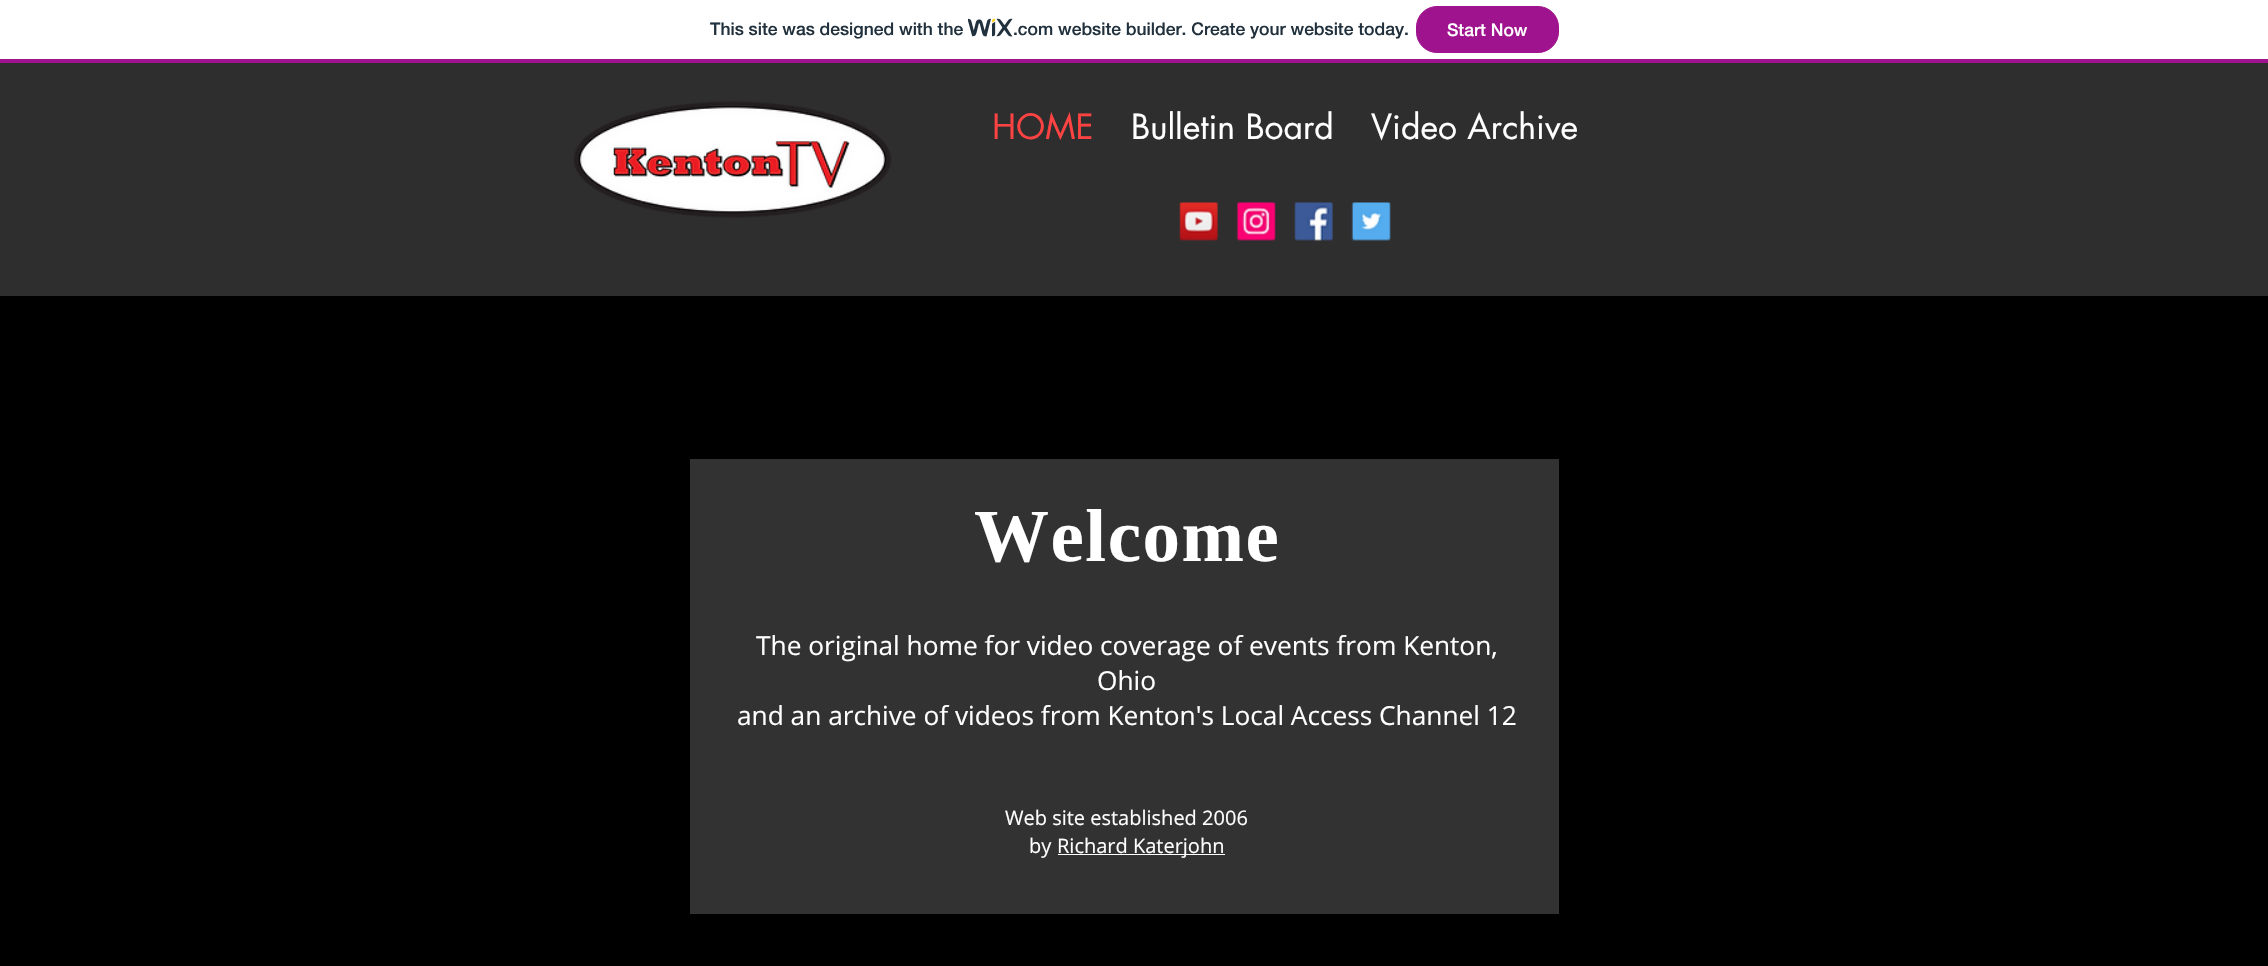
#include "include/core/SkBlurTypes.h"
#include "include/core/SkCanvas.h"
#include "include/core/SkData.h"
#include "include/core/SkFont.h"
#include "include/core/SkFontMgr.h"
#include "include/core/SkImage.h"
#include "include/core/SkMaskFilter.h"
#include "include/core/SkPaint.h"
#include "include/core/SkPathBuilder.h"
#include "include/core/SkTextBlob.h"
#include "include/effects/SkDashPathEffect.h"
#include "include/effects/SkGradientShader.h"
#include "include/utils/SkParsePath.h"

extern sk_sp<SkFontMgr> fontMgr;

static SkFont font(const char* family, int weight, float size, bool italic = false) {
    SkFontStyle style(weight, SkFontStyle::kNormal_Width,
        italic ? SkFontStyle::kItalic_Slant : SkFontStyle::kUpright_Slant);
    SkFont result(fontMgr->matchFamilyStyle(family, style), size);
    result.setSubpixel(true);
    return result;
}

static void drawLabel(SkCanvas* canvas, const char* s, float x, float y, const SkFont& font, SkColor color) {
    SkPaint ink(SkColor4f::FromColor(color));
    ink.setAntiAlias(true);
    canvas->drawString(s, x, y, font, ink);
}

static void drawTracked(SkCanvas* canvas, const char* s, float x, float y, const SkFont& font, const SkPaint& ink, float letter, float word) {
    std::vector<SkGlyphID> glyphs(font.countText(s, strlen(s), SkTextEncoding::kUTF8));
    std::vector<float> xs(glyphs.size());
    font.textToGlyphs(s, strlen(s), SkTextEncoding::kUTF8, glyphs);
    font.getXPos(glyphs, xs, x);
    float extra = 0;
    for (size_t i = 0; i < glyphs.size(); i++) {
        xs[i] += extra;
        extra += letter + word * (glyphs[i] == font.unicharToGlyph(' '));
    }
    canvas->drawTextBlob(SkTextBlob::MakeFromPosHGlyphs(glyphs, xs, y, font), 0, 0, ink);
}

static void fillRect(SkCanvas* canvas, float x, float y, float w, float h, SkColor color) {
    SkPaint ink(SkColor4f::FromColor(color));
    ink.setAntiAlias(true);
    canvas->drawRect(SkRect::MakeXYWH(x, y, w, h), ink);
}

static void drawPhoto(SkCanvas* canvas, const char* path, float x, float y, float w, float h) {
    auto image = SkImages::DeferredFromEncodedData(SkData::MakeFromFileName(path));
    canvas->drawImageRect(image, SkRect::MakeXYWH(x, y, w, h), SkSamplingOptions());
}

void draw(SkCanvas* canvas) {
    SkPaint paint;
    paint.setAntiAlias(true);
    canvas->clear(0xFFFFFFFF);
    fillRect(canvas, 0, 59, 2268, 4, 0xFFA0138E);
    SkFont font1 = font("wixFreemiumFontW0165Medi", 500, 17.5f);
    drawLabel(canvas, "This site was designed with the", 710, 35, font1, 0xFF20303C);
    drawPhoto(canvas, "assets/img1.png", 968, 18, 45, 19);
    drawLabel(canvas, ".com website builder. Create your website today.", 1013, 35, font1, 0xFF20303C);
    paint.setColor(0xFFA0138E);
    canvas->drawRoundRect(SkRect::MakeXYWH(1416.5f, 6.5f, 142, 46), 20.5f, 20.5f, paint);
    paint.setStroke(true);
    paint.setStrokeWidth(1);
    canvas->drawRoundRect(SkRect::MakeXYWH(1416.5f, 6.5f, 142, 46), 20.5f, 20.5f, paint);
    drawLabel(canvas, "Start Now", 1447, 36, font1, 0xFFFFFFFF);
    fillRect(canvas, 0, 63, 2268, 233, 0xFF2F2E2E);
    drawPhoto(canvas, "assets/img2.png", 573, 101, 319, 117);
    SkFont font2 = font("futura", 400, 33.75f);
    drawLabel(canvas, "HOME", 992, 139, font2, 0xFFFF4242);
    drawLabel(canvas, "Bulletin Board", 1131, 139, font2, 0xFFFFFFFF);
    drawLabel(canvas, "Video Archive", 1371, 139, font2, 0xFFFFFFFF);
    drawPhoto(canvas, "assets/img3.png", 1179, 202, 39, 39);
    drawPhoto(canvas, "assets/img4.png", 1236, 202, 40, 39);
    drawPhoto(canvas, "assets/img5.png", 1294, 202, 39, 39);
    drawPhoto(canvas, "assets/img6.png", 1351, 202, 40, 39);
    fillRect(canvas, 0, 296, 2268, 670, 0xFF000000);
    fillRect(canvas, 690, 459, 869, 455, 0xFF323232);
    SkFont font3 = font("Liberation Serif", 700, 75);
    paint.setStroke(false);
    paint.setColor(0xFFFFFFFF);
    drawTracked(canvas, "Welcome", 974, 561, font3, paint, 1.5f, 0);
    SkFont font4 = font("Open Sans", 400, 26.25f);
    drawLabel(canvas, "The original home for video coverage of events from Kenton,", 756, 655, font4, 0xFFFFFFFF);
    drawLabel(canvas, "Ohio", 1097, 690, font4, 0xFFFFFFFF);
    drawLabel(canvas, "and an archive of videos from Kenton's Local Access Channel 12", 737, 725, font4, 0xFFFFFFFF);
    SkFont font5 = font("Open Sans", 400, 20);
    drawLabel(canvas, "Web site established 2006", 1005, 825, font5, 0xFFFFFFFF);
    drawLabel(canvas, "by", 1029, 853, font5, 0xFFFFFFFF);
    fillRect(canvas, 1058, 854, 167, 1, 0xFFFFFFFF);
    drawLabel(canvas, "Richard Katerjohn", 1057, 853, font5, 0xFFFFFFFF);
}
